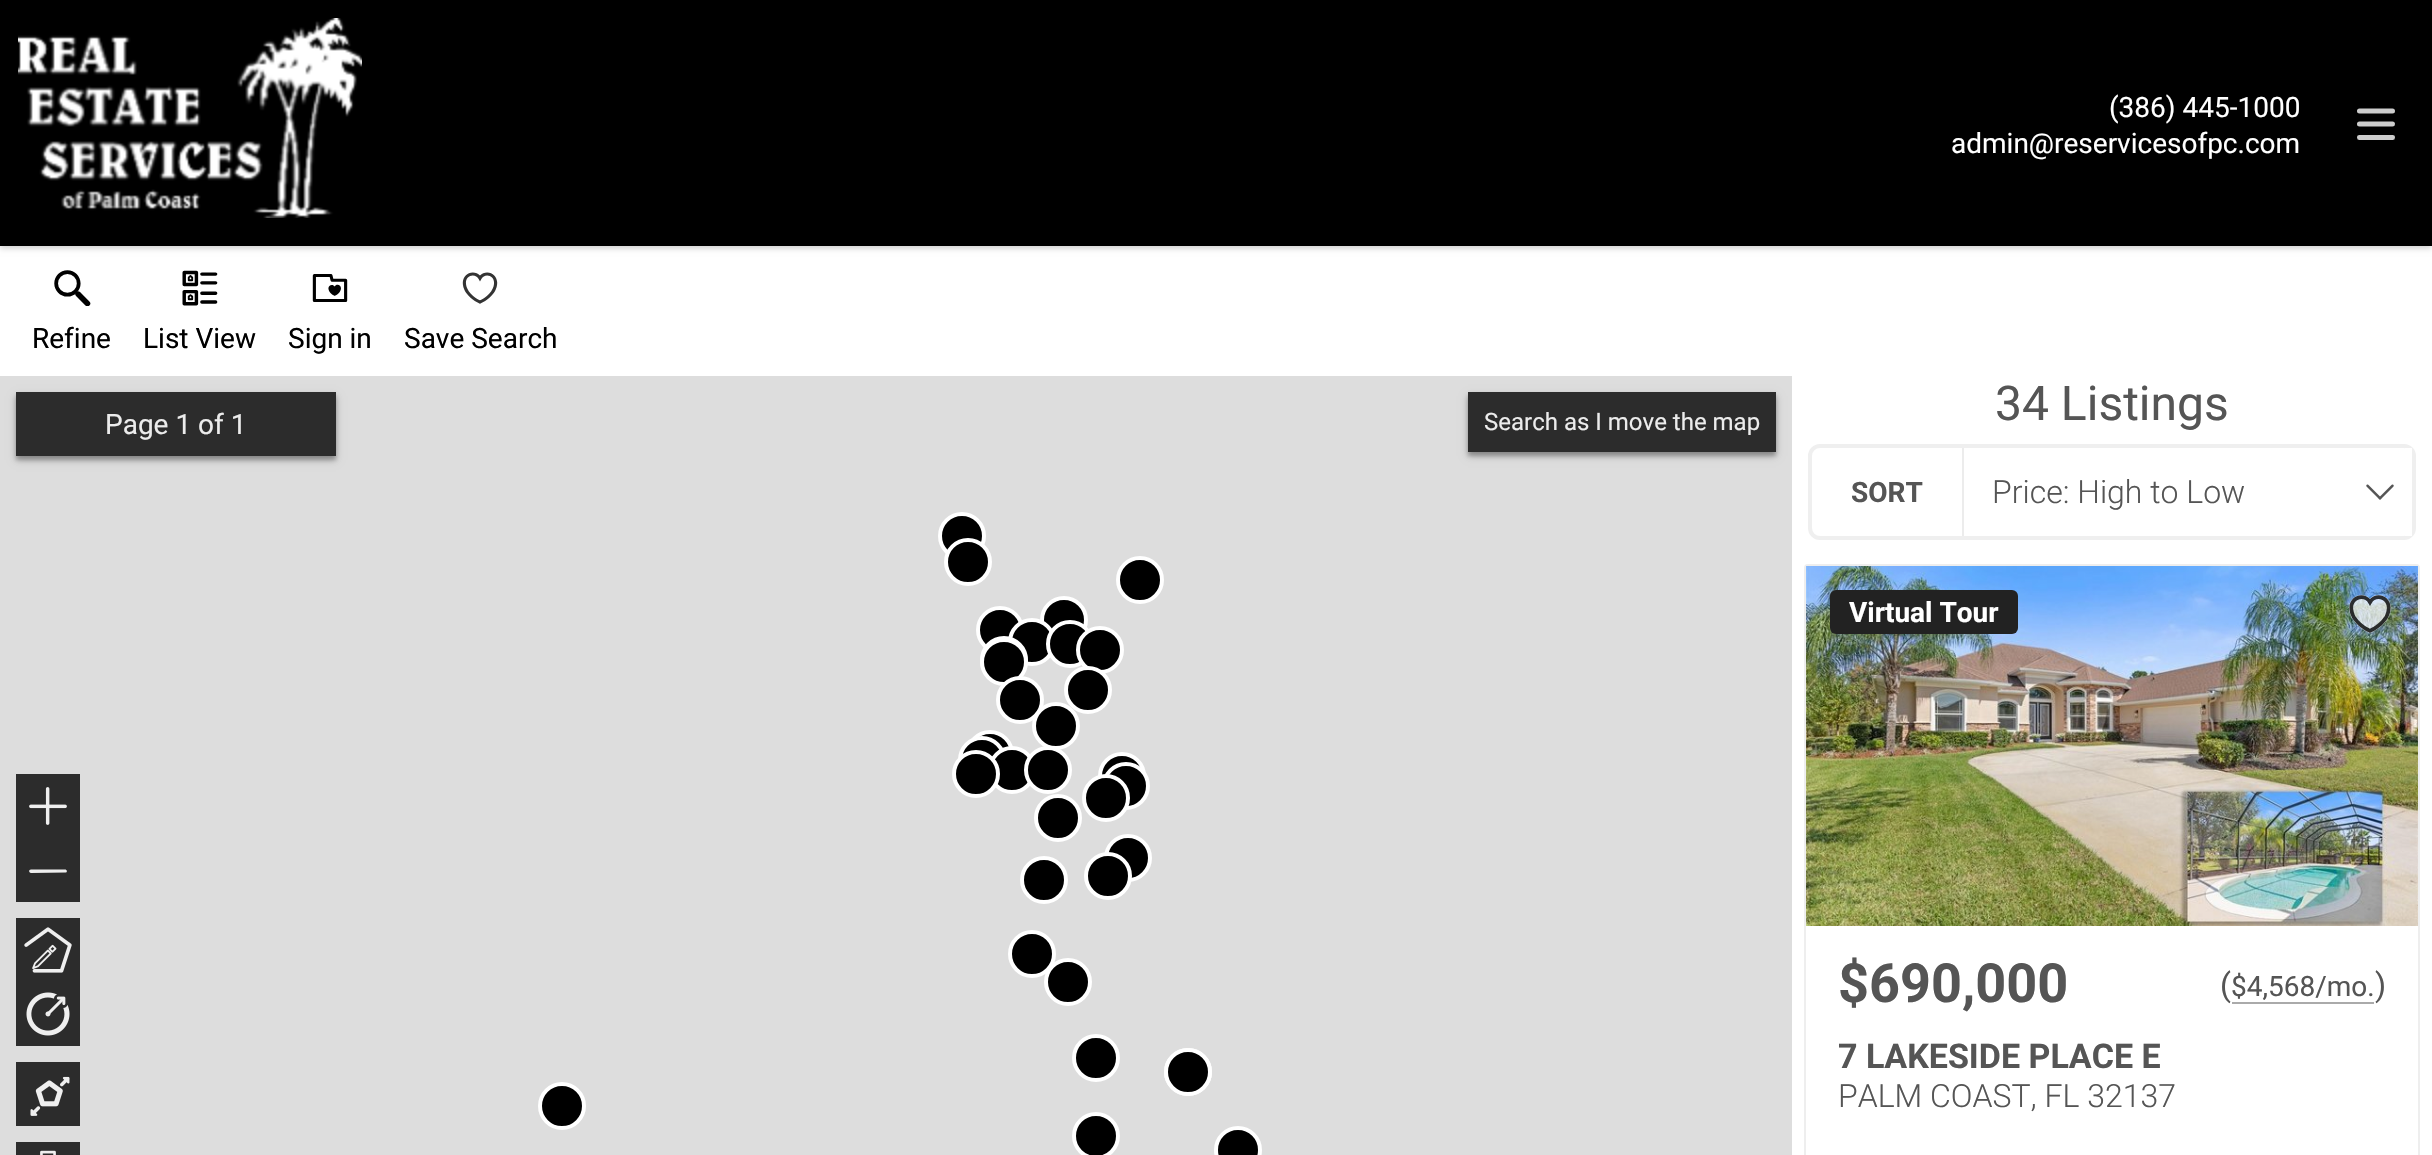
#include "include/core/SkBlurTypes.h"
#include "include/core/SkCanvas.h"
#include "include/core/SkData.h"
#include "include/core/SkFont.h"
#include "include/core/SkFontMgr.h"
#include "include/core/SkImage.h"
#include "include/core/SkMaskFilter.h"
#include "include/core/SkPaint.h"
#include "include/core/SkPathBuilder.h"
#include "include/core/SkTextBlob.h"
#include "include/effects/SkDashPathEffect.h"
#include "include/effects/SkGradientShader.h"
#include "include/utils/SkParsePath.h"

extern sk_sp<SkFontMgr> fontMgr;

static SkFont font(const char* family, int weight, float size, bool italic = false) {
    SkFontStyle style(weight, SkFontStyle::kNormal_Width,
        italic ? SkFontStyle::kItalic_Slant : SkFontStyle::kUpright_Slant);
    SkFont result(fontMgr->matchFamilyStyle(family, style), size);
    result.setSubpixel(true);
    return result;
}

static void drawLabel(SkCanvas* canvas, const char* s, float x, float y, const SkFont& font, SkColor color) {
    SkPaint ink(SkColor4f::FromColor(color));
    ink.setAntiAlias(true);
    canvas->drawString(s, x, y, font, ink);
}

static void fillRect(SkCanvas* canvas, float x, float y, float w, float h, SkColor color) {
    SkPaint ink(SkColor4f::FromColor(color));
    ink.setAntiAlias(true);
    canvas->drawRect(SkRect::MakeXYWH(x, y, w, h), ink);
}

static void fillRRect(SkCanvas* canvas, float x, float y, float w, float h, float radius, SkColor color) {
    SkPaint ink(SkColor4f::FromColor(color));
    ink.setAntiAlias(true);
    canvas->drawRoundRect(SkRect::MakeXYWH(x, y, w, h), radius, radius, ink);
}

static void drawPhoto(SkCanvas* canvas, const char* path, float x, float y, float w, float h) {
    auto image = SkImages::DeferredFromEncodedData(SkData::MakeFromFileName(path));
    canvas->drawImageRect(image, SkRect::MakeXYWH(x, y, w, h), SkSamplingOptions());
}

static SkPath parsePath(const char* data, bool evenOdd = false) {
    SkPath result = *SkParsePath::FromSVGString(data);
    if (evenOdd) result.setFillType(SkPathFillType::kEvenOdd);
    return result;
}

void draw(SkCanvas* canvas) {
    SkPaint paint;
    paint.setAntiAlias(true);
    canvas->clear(0xFFFFFFFF);
    paint.setColor(0x33000000);
    paint.setMaskFilter(SkMaskFilter::MakeBlur(kNormal_SkBlurStyle, 3));
    canvas->drawRect(SkRect::MakeXYWH(0, 2, 2432, 246), paint);
    paint.setMaskFilter(nullptr);
    fillRect(canvas, 0, 0, 2432, 246, 0xFF000000);
    drawPhoto(canvas, "assets/img1.png", 18, 18, 344, 200);
    SkFont font1 = font("Roboto", 400, 28);
    drawLabel(canvas, "(386) 445-1000", 2109, 117, font1, 0xFFFFFFFF);
    drawLabel(canvas, "admin@reservicesofpc.com", 1951, 153, font1, 0xFFFFFFFF);
    drawPhoto(canvas, "assets/img2.png", 2357, 108, 38, 32);
    drawPhoto(canvas, "assets/img3.png", 54, 270, 37, 36);
    drawLabel(canvas, "Refine", 32, 348, font1, 0xFF000000);
    drawPhoto(canvas, "assets/img4.png", 182, 270, 36, 36);
    drawLabel(canvas, "List View", 143, 348, font1, 0xFF000000);
    drawPhoto(canvas, "assets/img5.png", 312, 274, 36, 28);
    drawLabel(canvas, "Sign in", 288, 348, font1, 0xFF000000);
    drawPhoto(canvas, "assets/img6.png", 462, 272, 36, 32);
    drawLabel(canvas, "Save Search", 404, 348, font1, 0xFF000000);
    fillRect(canvas, 0, 376, 1792, 779, 0xFFDDDDDD);
    paint.setColor(0x40000000);
    paint.setMaskFilter(SkMaskFilter::MakeBlur(kNormal_SkBlurStyle, 2));
    canvas->drawRect(SkRect::MakeXYWH(16, 396, 320, 64), paint);
    paint.setMaskFilter(nullptr);
    paint.setColor(0x33000000);
    paint.setMaskFilter(SkMaskFilter::MakeBlur(kNormal_SkBlurStyle, 4));
    canvas->drawRect(SkRect::MakeXYWH(16, 396, 320, 64), paint);
    paint.setMaskFilter(nullptr);
    fillRect(canvas, 16, 392, 320, 64, 0xFF2C2C2C);
    drawLabel(canvas, "Page 1 of 1", 105, 434, font1, 0xFFECECEC);
    paint.setColor(0x40000000);
    paint.setMaskFilter(SkMaskFilter::MakeBlur(kNormal_SkBlurStyle, 2));
    canvas->drawRect(SkRect::MakeXYWH(1468, 396, 308, 60), paint);
    paint.setMaskFilter(nullptr);
    paint.setColor(0x33000000);
    paint.setMaskFilter(SkMaskFilter::MakeBlur(kNormal_SkBlurStyle, 4));
    canvas->drawRect(SkRect::MakeXYWH(1468, 396, 308, 60), paint);
    paint.setMaskFilter(nullptr);
    fillRect(canvas, 1468, 392, 308, 60, 0xFF2C2C2C);
    SkFont font2 = font("Roboto", 400, 24);
    drawLabel(canvas, "Search as I move the map", 1484, 430, font2, 0xFFECECEC);
    fillRect(canvas, 16, 774, 64, 128, 0xFF2C2C2C);
    drawPhoto(canvas, "assets/img7.png", 29, 787, 38, 38);
    paint.setColor(0xFFEFEFEF);
    canvas->drawPath(parsePath("M31 869.5C28.5 869.5 28.5 872.5 31 873L66 872.5C67.5 872 67 869.5 65 869.5Z"), paint);
    fillRect(canvas, 16, 918, 64, 128, 0xFF2C2C2C);
    drawPhoto(canvas, "assets/img8.png", 24, 927, 48, 46);
    drawPhoto(canvas, "assets/img9.png", 26, 992, 44, 44);
    fillRect(canvas, 16, 1062, 64, 64, 0xFF2C2C2C);
    drawPhoto(canvas, "assets/img10.png", 30, 1076, 40, 40);
    fillRect(canvas, 16, 1142, 64, 13, 0xFF2C2C2C);
    drawPhoto(canvas, "assets/img11.png", 40, 1150, 16, 5);
    paint.setColor(0xFF000000);
    canvas->drawCircle(962, 536, 22, paint);
    paint.setStroke(true);
    paint.setStrokeWidth(4);
    paint.setColor(0xFFFFFFFF);
    canvas->drawCircle(962, 536, 22, paint);
    paint.setStroke(false);
    paint.setColor(0xFF000000);
    canvas->drawCircle(968, 562, 22, paint);
    paint.setStroke(true);
    paint.setColor(0xFFFFFFFF);
    canvas->drawCircle(968, 562, 22, paint);
    paint.setStroke(false);
    paint.setColor(0xFF000000);
    canvas->drawCircle(1140, 580, 22, paint);
    paint.setStroke(true);
    paint.setColor(0xFFFFFFFF);
    canvas->drawCircle(1140, 580, 22, paint);
    paint.setStroke(false);
    paint.setColor(0xFF000000);
    canvas->drawCircle(1000, 630, 22, paint);
    paint.setStroke(true);
    paint.setColor(0xFFFFFFFF);
    canvas->drawCircle(1000, 630, 22, paint);
    paint.setStroke(false);
    paint.setColor(0xFF000000);
    canvas->drawCircle(1064, 620, 22, paint);
    paint.setStroke(true);
    paint.setColor(0xFFFFFFFF);
    canvas->drawCircle(1064, 620, 22, paint);
    paint.setStroke(false);
    paint.setColor(0xFF000000);
    canvas->drawCircle(1032, 642, 22, paint);
    paint.setStroke(true);
    paint.setColor(0xFFFFFFFF);
    canvas->drawCircle(1032, 642, 22, paint);
    canvas->drawCircle(1004, 660, 22, paint);
    paint.setStroke(false);
    paint.setColor(0xFF000000);
    canvas->drawCircle(1070, 644, 22, paint);
    paint.setStroke(true);
    paint.setColor(0xFFFFFFFF);
    canvas->drawCircle(1070, 644, 22, paint);
    paint.setStroke(false);
    paint.setColor(0xFF000000);
    canvas->drawCircle(1100, 650, 22, paint);
    paint.setStroke(true);
    paint.setColor(0xFFFFFFFF);
    canvas->drawCircle(1100, 650, 22, paint);
    paint.setStroke(false);
    paint.setColor(0xFF000000);
    canvas->drawCircle(1004, 662, 22, paint);
    paint.setStroke(true);
    paint.setColor(0xFFFFFFFF);
    canvas->drawCircle(1004, 662, 22, paint);
    paint.setStroke(false);
    paint.setColor(0xFF000000);
    canvas->drawCircle(1088, 690, 22, paint);
    paint.setStroke(true);
    paint.setColor(0xFFFFFFFF);
    canvas->drawCircle(1088, 690, 22, paint);
    paint.setStroke(false);
    paint.setColor(0xFF000000);
    canvas->drawCircle(990, 754, 22, paint);
    paint.setStroke(true);
    paint.setColor(0xFFFFFFFF);
    canvas->drawCircle(990, 754, 22, paint);
    paint.setStroke(false);
    paint.setColor(0xFF000000);
    canvas->drawCircle(1020, 700, 22, paint);
    paint.setStroke(true);
    paint.setColor(0xFFFFFFFF);
    canvas->drawCircle(1020, 700, 22, paint);
    paint.setStroke(false);
    paint.setColor(0xFF000000);
    canvas->drawCircle(1056, 726, 22, paint);
    paint.setStroke(true);
    paint.setColor(0xFFFFFFFF);
    canvas->drawCircle(1056, 726, 22, paint);
    paint.setStroke(false);
    paint.setColor(0xFF000000);
    canvas->drawCircle(982, 760, 22, paint);
    paint.setStroke(true);
    paint.setColor(0xFFFFFFFF);
    canvas->drawCircle(982, 760, 22, paint);
    paint.setStroke(false);
    paint.setColor(0xFF000000);
    canvas->drawCircle(1012, 770, 22, paint);
    paint.setStroke(true);
    paint.setColor(0xFFFFFFFF);
    canvas->drawCircle(1012, 770, 22, paint);
    paint.setStroke(false);
    paint.setColor(0xFF000000);
    canvas->drawCircle(1048, 770, 22, paint);
    paint.setStroke(true);
    paint.setColor(0xFFFFFFFF);
    canvas->drawCircle(1048, 770, 22, paint);
    paint.setStroke(false);
    paint.setColor(0xFF000000);
    canvas->drawCircle(976, 774, 22, paint);
    paint.setStroke(true);
    paint.setColor(0xFFFFFFFF);
    canvas->drawCircle(976, 774, 22, paint);
    paint.setStroke(false);
    paint.setColor(0xFF000000);
    canvas->drawCircle(1122, 776, 22, paint);
    paint.setStroke(true);
    paint.setColor(0xFFFFFFFF);
    canvas->drawCircle(1122, 776, 22, paint);
    paint.setStroke(false);
    paint.setColor(0xFF000000);
    canvas->drawCircle(1126, 786, 22, paint);
    paint.setStroke(true);
    paint.setColor(0xFFFFFFFF);
    canvas->drawCircle(1126, 786, 22, paint);
    paint.setStroke(false);
    paint.setColor(0xFF000000);
    canvas->drawCircle(1058, 818, 22, paint);
    paint.setStroke(true);
    paint.setColor(0xFFFFFFFF);
    canvas->drawCircle(1058, 818, 22, paint);
    paint.setStroke(false);
    paint.setColor(0xFF000000);
    canvas->drawCircle(1106, 798, 22, paint);
    paint.setStroke(true);
    paint.setColor(0xFFFFFFFF);
    canvas->drawCircle(1106, 798, 22, paint);
    paint.setStroke(false);
    paint.setColor(0xFF000000);
    canvas->drawCircle(1128, 858, 22, paint);
    paint.setStroke(true);
    paint.setColor(0xFFFFFFFF);
    canvas->drawCircle(1128, 858, 22, paint);
    paint.setStroke(false);
    paint.setColor(0xFF000000);
    canvas->drawCircle(1044, 880, 22, paint);
    paint.setStroke(true);
    paint.setColor(0xFFFFFFFF);
    canvas->drawCircle(1044, 880, 22, paint);
    paint.setStroke(false);
    paint.setColor(0xFF000000);
    canvas->drawCircle(1108, 876, 22, paint);
    paint.setStroke(true);
    paint.setColor(0xFFFFFFFF);
    canvas->drawCircle(1108, 876, 22, paint);
    paint.setStroke(false);
    paint.setColor(0xFF000000);
    canvas->drawCircle(1032, 954, 22, paint);
    paint.setStroke(true);
    paint.setColor(0xFFFFFFFF);
    canvas->drawCircle(1032, 954, 22, paint);
    paint.setStroke(false);
    paint.setColor(0xFF000000);
    canvas->drawCircle(1068, 982, 22, paint);
    paint.setStroke(true);
    paint.setColor(0xFFFFFFFF);
    canvas->drawCircle(1068, 982, 22, paint);
    paint.setStroke(false);
    paint.setColor(0xFF000000);
    canvas->drawCircle(1096, 1058, 22, paint);
    paint.setStroke(true);
    paint.setColor(0xFFFFFFFF);
    canvas->drawCircle(1096, 1058, 22, paint);
    canvas->drawCircle(1188, 1072, 22, paint);
    paint.setStroke(false);
    paint.setColor(0xFF000000);
    canvas->drawCircle(1188, 1072, 22, paint);
    paint.setStroke(true);
    paint.setColor(0xFFFFFFFF);
    canvas->drawCircle(1188, 1072, 22, paint);
    paint.setStroke(false);
    paint.setColor(0xFF000000);
    canvas->drawCircle(562, 1106, 22, paint);
    paint.setStroke(true);
    paint.setColor(0xFFFFFFFF);
    canvas->drawCircle(562, 1106, 22, paint);
    paint.setStroke(false);
    paint.setColor(0xFF000000);
    canvas->drawCircle(1096, 1136, 22, paint);
    paint.setStroke(true);
    paint.setColor(0xFFFFFFFF);
    canvas->drawCircle(1096, 1136, 22, paint);
    paint.setStroke(false);
    paint.setColor(0xFF000000);
    canvas->drawCircle(1238, 1150, 22, paint);
    paint.setStroke(true);
    paint.setColor(0xFFFFFFFF);
    canvas->drawCircle(1238, 1150, 22, paint);
    SkFont font3 = font("Roboto", 400, 48);
    drawLabel(canvas, "34 Listings", 1995, 420, font3, 0xFF555555);
    paint.setColor(0xFFEFEFEF);
    canvas->drawRoundRect(SkRect::MakeXYWH(1810, 446, 604, 92), 10, 10, paint);
    SkFont font4 = font("Roboto", 700, 28);
    drawLabel(canvas, "SORT", 1851, 502, font4, 0xFF555555);
    fillRect(canvas, 2405, 448, 7, 88, 0xFFFFFFFF);
    fillRect(canvas, 1962, 448, 2, 88, 0xFFECECEC);
    SkFont font5 = font("Roboto", 300, 32);
    drawLabel(canvas, "Price: High to Low", 1992, 503, font5, 0xFF555555);
    drawPhoto(canvas, "assets/img12.png", 2366, 484, 28, 16);
    paint.setStrokeWidth(2);
    paint.setColor(0xFFEEEEEE);
    canvas->drawRoundRect(SkRect::MakeXYWH(1805, 565, 614, 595), 3, 3, paint);
    drawPhoto(canvas, "assets/img13.png", 1806, 566, 612, 360);
    fillRRect(canvas, 1830, 590, 188, 44, 6, 0xFF222222);
    drawLabel(canvas, "Virtual Tour", 1849, 622, font4, 0xFFFFFFFF);
    drawPhoto(canvas, "assets/img14.png", 2348, 594, 44, 40);
    SkFont font6 = font("Roboto", 700, 54);
    drawLabel(canvas, "$690,000", 1838, 1002, font6, 0xFF555555);
    SkFont font7 = font("Roboto", 400, 32);
    drawLabel(canvas, "(", 2220, 996, font7, 0xFF555555);
    fillRect(canvas, 2232, 1002, 142, 2, 0xFFAAAAAA);
    drawLabel(canvas, "$4,568/mo.", 2231, 996, font1, 0xFF555555);
    drawLabel(canvas, ")", 2375, 996, font7, 0xFF555555);
    SkFont font8 = font("Roboto", 700, 34);
    drawLabel(canvas, "7 LAKESIDE PLACE E", 1838, 1068, font8, 0xFF555555);
    drawLabel(canvas, "PALM COAST, FL 32137", 1838, 1107, font5, 0xFF555555);
}
